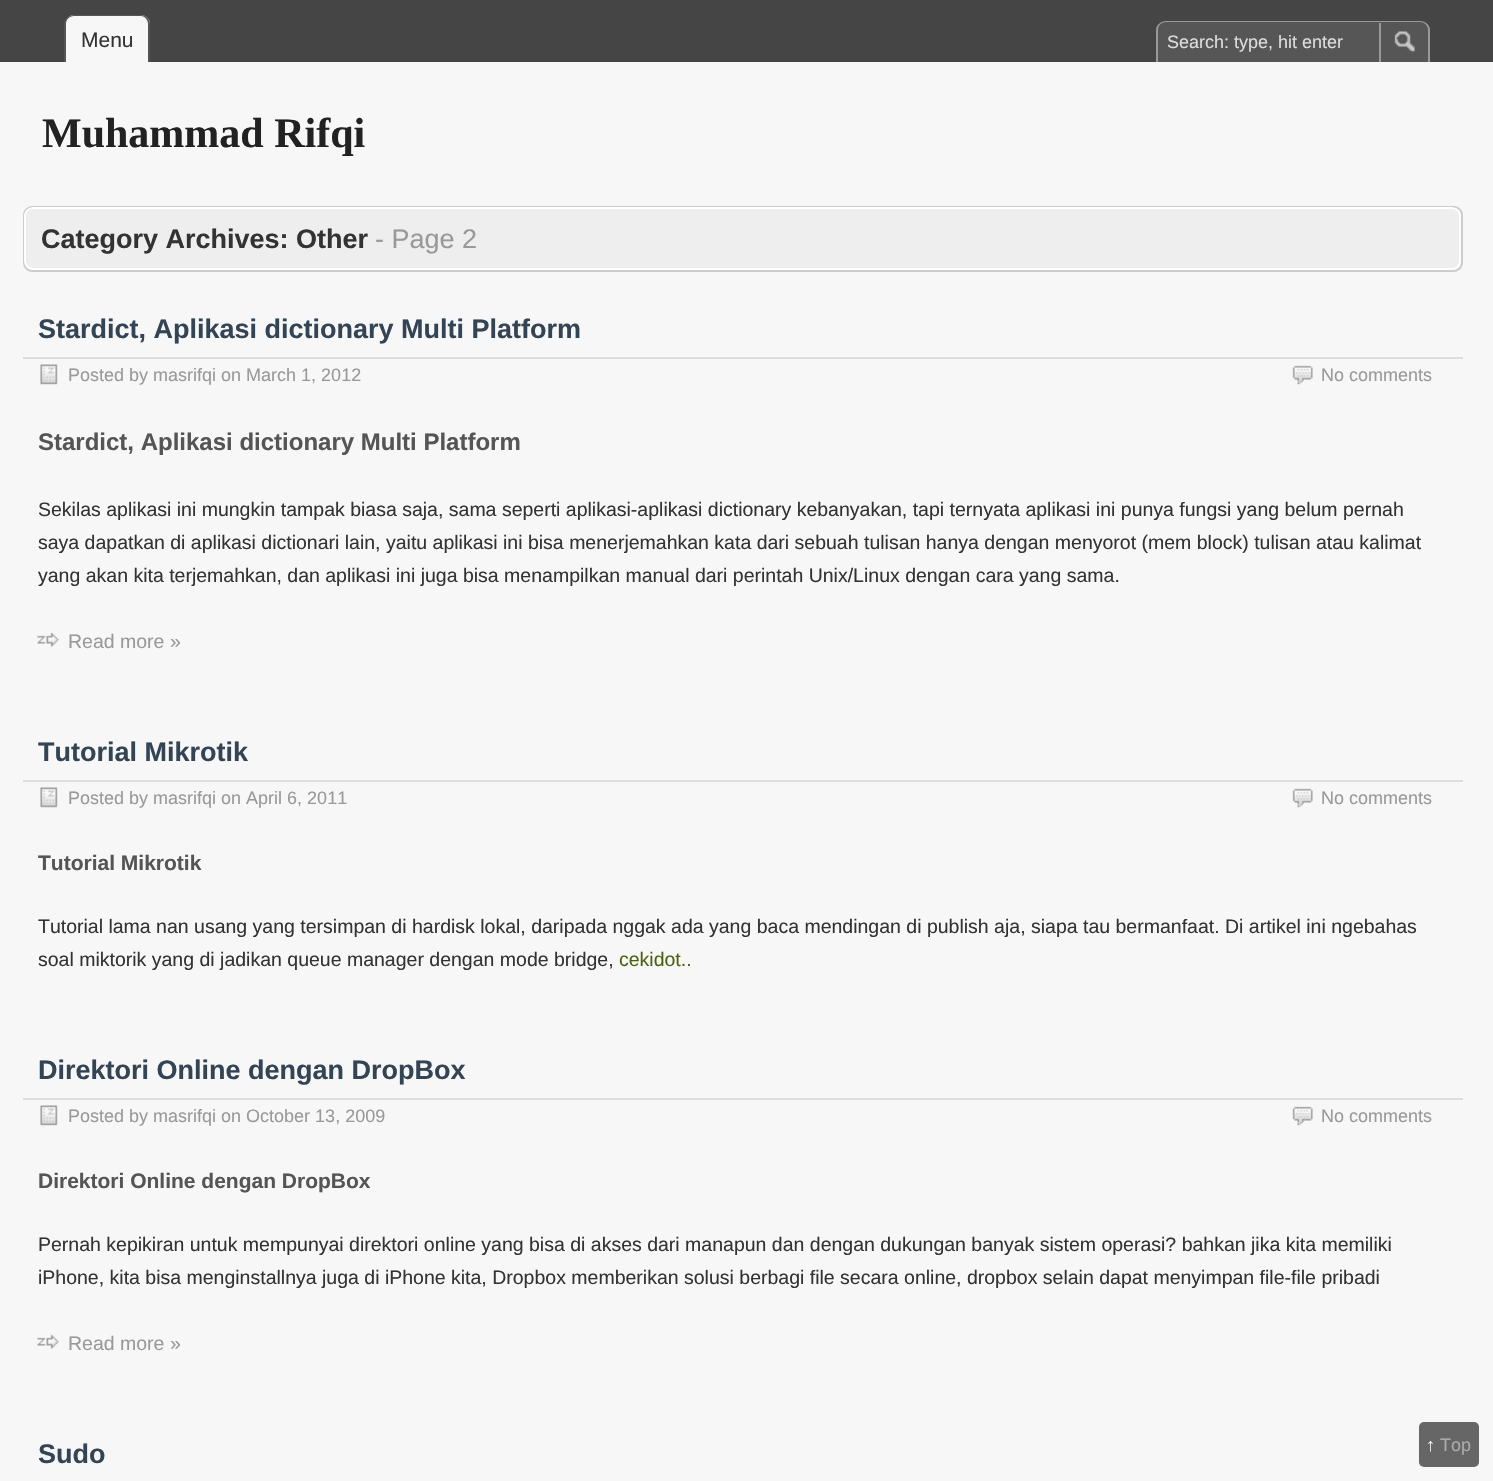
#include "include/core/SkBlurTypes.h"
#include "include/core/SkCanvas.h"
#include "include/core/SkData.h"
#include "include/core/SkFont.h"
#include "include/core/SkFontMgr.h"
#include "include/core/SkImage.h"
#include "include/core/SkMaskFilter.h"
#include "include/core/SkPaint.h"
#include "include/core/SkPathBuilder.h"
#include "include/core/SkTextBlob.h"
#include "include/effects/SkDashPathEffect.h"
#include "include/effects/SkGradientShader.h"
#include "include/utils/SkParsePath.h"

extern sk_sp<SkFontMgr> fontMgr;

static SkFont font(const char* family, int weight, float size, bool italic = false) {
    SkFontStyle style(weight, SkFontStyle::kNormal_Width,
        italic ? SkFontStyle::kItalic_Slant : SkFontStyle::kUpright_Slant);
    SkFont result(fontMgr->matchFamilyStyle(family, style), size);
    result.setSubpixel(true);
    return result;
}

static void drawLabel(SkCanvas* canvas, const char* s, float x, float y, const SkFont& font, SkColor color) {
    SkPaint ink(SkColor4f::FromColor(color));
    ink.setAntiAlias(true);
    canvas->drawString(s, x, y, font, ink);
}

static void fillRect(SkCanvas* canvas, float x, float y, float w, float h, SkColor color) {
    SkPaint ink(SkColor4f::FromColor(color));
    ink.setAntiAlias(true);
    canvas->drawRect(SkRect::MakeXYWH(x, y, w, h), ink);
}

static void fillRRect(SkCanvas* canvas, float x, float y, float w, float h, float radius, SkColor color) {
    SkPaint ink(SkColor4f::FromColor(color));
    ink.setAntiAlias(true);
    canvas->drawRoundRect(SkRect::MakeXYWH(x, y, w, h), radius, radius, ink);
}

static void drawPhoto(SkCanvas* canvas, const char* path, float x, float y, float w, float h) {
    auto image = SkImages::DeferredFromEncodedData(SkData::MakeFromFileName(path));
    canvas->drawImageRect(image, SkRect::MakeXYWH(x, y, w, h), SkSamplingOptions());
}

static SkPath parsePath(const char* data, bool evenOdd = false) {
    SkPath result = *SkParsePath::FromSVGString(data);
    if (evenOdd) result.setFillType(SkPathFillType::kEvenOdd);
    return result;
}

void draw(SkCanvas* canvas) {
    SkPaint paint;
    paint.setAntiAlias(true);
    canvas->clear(0xFFF7F7F7);
    fillRect(canvas, 0, 0, 1493, 62, 0xFF454546);
    paint.setColor(0xFFF7F7F7);
    canvas->drawPath(parsePath("M74 15H141C146 15 150 19 150 24V62H65V24C65 19 69 15 74 15Z"), paint);
    paint.setColor(0xFF555555);
    canvas->drawPath(parsePath("M74 15H141C146 15 150 19 150 24V62H64V24C64 19 69 15 74 15ZM74 16H141C145 16 148 20 148 24V62H66V24C66 20 69 16 74 16Z", true), paint);
    SkFont font1 = font("Liberation Sans", 400, 21);
    drawLabel(canvas, "Menu", 81, 47, font1, 0xFF333333);
    paint.setColor(0xFF565657);
    canvas->drawPath(parsePath("M1166 21H1421C1426 21 1430 25 1430 30V62H1157V30C1157 25 1161 21 1166 21Z"), paint);
    paint.setColor(0xFF999999);
    canvas->drawPath(parsePath("M1166 21H1420C1425 21 1430 25 1430 30V62H1156V30C1156 25 1161 21 1166 21ZM1166 22H1420C1425 22 1428 26 1428 30V62H1158V30C1158 26 1161 22 1166 22Z", true), paint);
    SkFont font2 = font("Liberation Sans", 400, 18);
    drawLabel(canvas, "Search: type, hit enter", 1167, 48, font2, 0xFFDDDDDD);
    drawPhoto(canvas, "assets/img1.png", 1394, 31, 21, 21);
    fillRect(canvas, 1379, 23, 2, 39, 0xFF999999);
    SkFont font3 = font("Liberation Serif", 700, 42);
    drawLabel(canvas, "Muhammad Rifqi", 42, 147, font3, 0xFF222222);
    paint.setColor(0xFFEEEEEE);
    canvas->drawRoundRect(SkRect::MakeXYWH(24, 207, 1438, 64), 8, 8, paint);
    paint.setStroke(true);
    paint.setStrokeWidth(2);
    paint.setColor(0xFFCCCCCC);
    canvas->drawRoundRect(SkRect::MakeXYWH(24, 207, 1438, 64), 8, 8, paint);
    paint.setColor(0xFFFFFFFF);
    canvas->drawRoundRect(SkRect::MakeXYWH(25, 208, 1435, 61), 8, 8, paint);
    SkFont font4 = font("Liberation Sans", 700, 27);
    drawLabel(canvas, "Category Archives: Other", 41, 248, font4, 0xFF333333);
    SkFont font5 = font("Liberation Sans", 400, 27);
    drawLabel(canvas, "- Page 2", 375, 248, font5, 0xFF999999);
    fillRect(canvas, 23, 356, 1440, 1, 0xFFFAFAFA);
    drawLabel(canvas, "Stardict, Aplikasi dictionary Multi Platform", 38, 338, font4, 0xFF334455);
    fillRect(canvas, 23, 357, 1440, 2, 0xFFDDDDDD);
    drawPhoto(canvas, "assets/img2.png", 40, 364, 18, 21);
    drawLabel(canvas, "Posted by masrifqi on March 1, 2012", 68, 381, font2, 0xFF999999);
    drawPhoto(canvas, "assets/img3.png", 1292, 365, 21, 20);
    drawLabel(canvas, "No comments", 1321, 381, font2, 0xFF999999);
    SkFont font6 = font("Liberation Sans", 700, 24);
    drawLabel(canvas, "Stardict, Aplikasi dictionary Multi Platform", 38, 450, font6, 0xFF555555);
    SkFont font7 = font("Liberation Sans", 400, 19.5f);
    drawLabel(canvas, "Sekilas aplikasi ini mungkin tampak biasa saja, sama seperti aplikasi-aplikasi dictionary kebanyakan, tapi ternyata aplikasi ini punya fungsi yang belum pernah", 38, 516, font7, 0xFF333333);
    drawLabel(canvas, "saya dapatkan di aplikasi dictionari lain, yaitu aplikasi ini bisa menerjemahkan kata dari sebuah tulisan hanya dengan menyorot (mem block) tulisan atau kalimat", 38, 549, font7, 0xFF333333);
    drawLabel(canvas, "yang akan kita terjemahkan, dan aplikasi ini juga bisa menampilkan manual dari perintah Unix/Linux dengan cara yang sama.", 38, 582, font7, 0xFF333333);
    drawPhoto(canvas, "assets/img4.png", 37, 632, 22, 15);
    drawLabel(canvas, "Read more »", 68, 648, font7, 0xFF999999);
    fillRect(canvas, 23, 779, 1440, 1, 0xFFFAFAFA);
    drawLabel(canvas, "Tutorial Mikrotik", 38, 761, font4, 0xFF334455);
    fillRect(canvas, 23, 780, 1440, 2, 0xFFDDDDDD);
    drawPhoto(canvas, "assets/img2.png", 40, 787, 18, 21);
    drawLabel(canvas, "Posted by masrifqi on April 6, 2011", 68, 804, font2, 0xFF999999);
    drawPhoto(canvas, "assets/img3.png", 1292, 788, 21, 20);
    drawLabel(canvas, "No comments", 1321, 804, font2, 0xFF999999);
    SkFont font8 = font("Liberation Sans", 700, 21);
    drawLabel(canvas, "Tutorial Mikrotik", 38, 870, font8, 0xFF555555);
    drawLabel(canvas, "Tutorial lama nan usang yang tersimpan di hardisk lokal, daripada nggak ada yang baca mendingan di publish aja, siapa tau bermanfaat. Di artikel ini ngebahas", 38, 933, font7, 0xFF333333);
    drawLabel(canvas, "soal miktorik yang di jadikan queue manager dengan mode bridge,", 38, 966, font7, 0xFF333333);
    drawLabel(canvas, "cekidot..", 619, 966, font7, 0xFF4A630F);
    fillRect(canvas, 23, 1097, 1440, 1, 0xFFFAFAFA);
    drawLabel(canvas, "Direktori Online dengan DropBox", 38, 1079, font4, 0xFF334455);
    fillRect(canvas, 23, 1098, 1440, 2, 0xFFDDDDDD);
    drawPhoto(canvas, "assets/img2.png", 40, 1105, 18, 21);
    drawLabel(canvas, "Posted by masrifqi on October 13, 2009", 68, 1122, font2, 0xFF999999);
    drawPhoto(canvas, "assets/img3.png", 1292, 1106, 21, 20);
    drawLabel(canvas, "No comments", 1321, 1122, font2, 0xFF999999);
    drawLabel(canvas, "Direktori Online dengan DropBox", 38, 1188, font8, 0xFF555555);
    drawLabel(canvas, "Pernah kepikiran untuk mempunyai direktori online yang bisa di akses dari manapun dan dengan dukungan banyak sistem operasi? bahkan jika kita memiliki", 38, 1251, font7, 0xFF333333);
    drawLabel(canvas, "iPhone, kita bisa menginstallnya juga di iPhone kita, Dropbox memberikan solusi berbagi file secara online, dropbox selain dapat menyimpan file-file pribadi", 38, 1284, font7, 0xFF333333);
    drawPhoto(canvas, "assets/img4.png", 37, 1334, 22, 15);
    drawLabel(canvas, "Read more »", 68, 1350, font7, 0xFF999999);
    drawLabel(canvas, "Sudo", 38, 1463, font4, 0xFF334455);
    fillRRect(canvas, 1419, 1422, 60, 45, 5, 0xFF666666);
    SkFont font9 = font("Liberation Sans", 700, 18);
    drawLabel(canvas, "↑", 1426, 1451, font9, 0xFFFAFAFA);
    drawLabel(canvas, "Top", 1440, 1451, font2, 0xFFAAAAAA);
}
